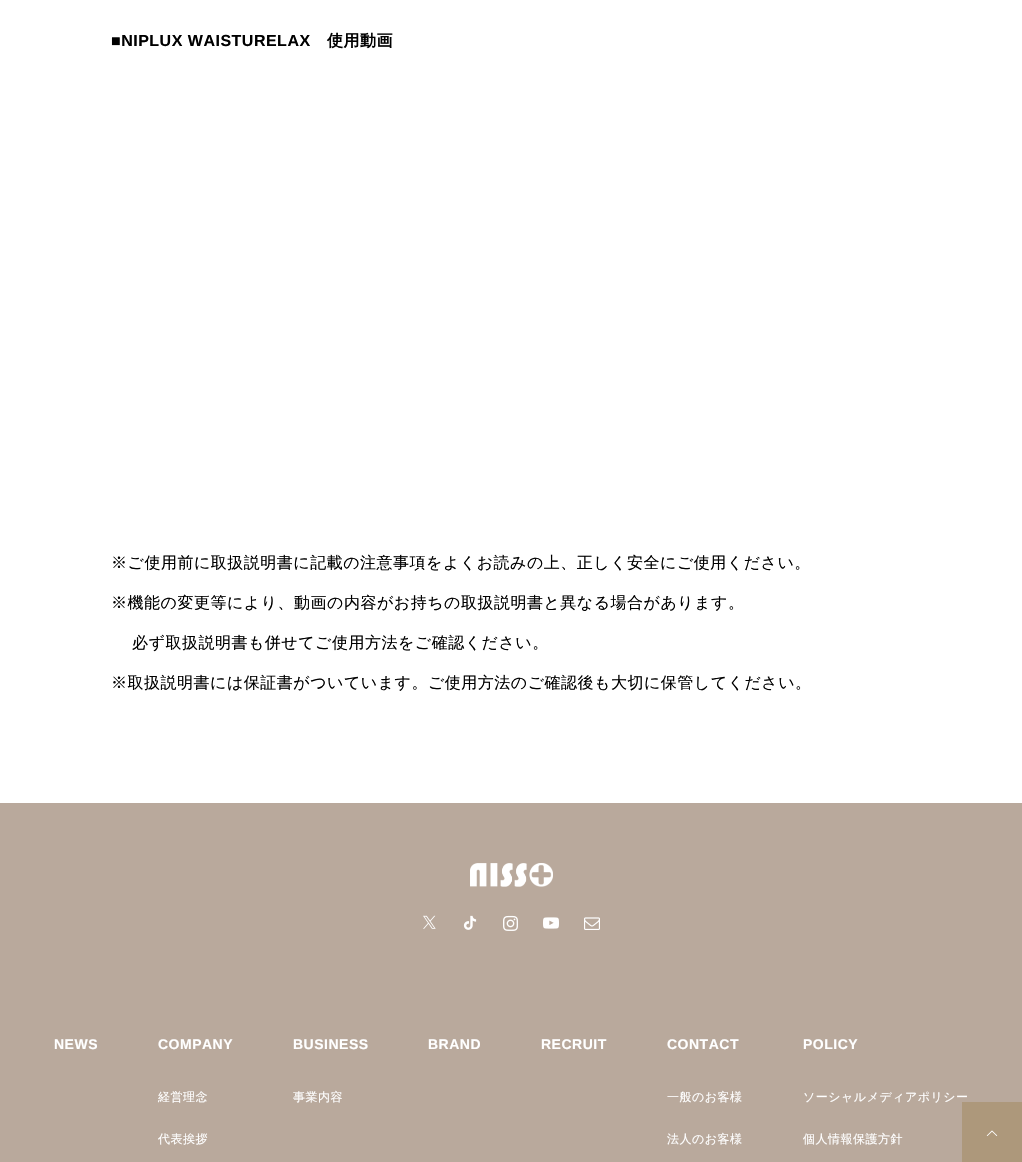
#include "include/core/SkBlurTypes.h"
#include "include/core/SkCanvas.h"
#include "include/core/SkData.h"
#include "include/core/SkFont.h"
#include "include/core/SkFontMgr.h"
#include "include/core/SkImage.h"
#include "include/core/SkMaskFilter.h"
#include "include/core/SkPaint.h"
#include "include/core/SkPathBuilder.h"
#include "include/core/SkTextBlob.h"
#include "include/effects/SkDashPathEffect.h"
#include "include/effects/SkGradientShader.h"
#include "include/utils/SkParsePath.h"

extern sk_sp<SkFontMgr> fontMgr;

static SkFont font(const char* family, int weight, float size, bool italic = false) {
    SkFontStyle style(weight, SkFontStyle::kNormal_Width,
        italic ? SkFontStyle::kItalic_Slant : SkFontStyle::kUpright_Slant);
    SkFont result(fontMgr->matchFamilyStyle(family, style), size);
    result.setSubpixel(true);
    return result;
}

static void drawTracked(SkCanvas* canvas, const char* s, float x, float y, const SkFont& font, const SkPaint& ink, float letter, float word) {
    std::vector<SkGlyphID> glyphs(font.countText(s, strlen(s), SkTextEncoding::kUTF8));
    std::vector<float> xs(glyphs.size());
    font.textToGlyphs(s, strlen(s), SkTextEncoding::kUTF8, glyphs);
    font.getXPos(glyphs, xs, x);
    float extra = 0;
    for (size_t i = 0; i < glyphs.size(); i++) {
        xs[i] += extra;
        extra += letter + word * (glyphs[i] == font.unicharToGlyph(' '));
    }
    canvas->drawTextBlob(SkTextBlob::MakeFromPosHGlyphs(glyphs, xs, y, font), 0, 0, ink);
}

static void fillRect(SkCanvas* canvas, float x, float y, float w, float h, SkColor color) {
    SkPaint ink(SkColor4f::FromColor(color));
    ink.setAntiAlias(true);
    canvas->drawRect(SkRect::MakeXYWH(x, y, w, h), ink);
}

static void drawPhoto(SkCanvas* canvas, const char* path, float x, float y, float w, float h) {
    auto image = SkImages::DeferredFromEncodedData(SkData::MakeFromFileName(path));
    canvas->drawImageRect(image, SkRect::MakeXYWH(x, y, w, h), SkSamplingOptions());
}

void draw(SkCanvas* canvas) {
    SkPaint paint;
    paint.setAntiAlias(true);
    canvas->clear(0xFFFFFFFF);
    SkFont font1 = font("Liberation Sans", 700, 16);
    paint.setColor(0xFF000000);
    drawTracked(canvas, "■NIPLUX WAISTURELAX", 111, 46, font1, paint, 0.5f, 0);
    SkFont font2 = font("WenQuanYi Zen Hei", 700, 16);
    drawTracked(canvas, "使用動画", 327, 46, font2, paint, 0.5f, 0);
    SkFont font3 = font("WenQuanYi Zen Hei", 500, 16);
    drawTracked(canvas, "※ご使用前に取扱説明書に記載の注意事項をよくお読みの上、正しく安全にご使用ください。", 111, 568, font3, paint, 0.5f, 0);
    drawTracked(canvas, "※機能の変更等により、動画の内容がお持ちの取扱説明書と異なる場合があります。", 111, 608, font3, paint, 0.5f, 0);
    drawTracked(canvas, "必ず取扱説明書も併せてご使用方法をご確認ください。", 132, 648, font3, paint, 0.5f, 0);
    drawTracked(canvas, "※取扱説明書には保証書がついています。ご使用方法のご確認後も大切に保管してください。", 111, 688, font3, paint, 0.5f, 0);
    fillRect(canvas, 0, 803, 1022, 359, 0xFFB9A99C);
    drawPhoto(canvas, "assets/img1.png", 470, 863, 83, 24);
    drawPhoto(canvas, "assets/img2.png", 423, 915, 13, 14);
    drawPhoto(canvas, "assets/img3.png", 463, 915, 14, 15);
    drawPhoto(canvas, "assets/img4.png", 503, 915, 15, 16);
    drawPhoto(canvas, "assets/img5.png", 543, 917, 16, 12);
    drawPhoto(canvas, "assets/img6.png", 584, 917, 16, 13);
    SkFont font4 = font("Liberation Sans", 700, 14);
    paint.setColor(0xFFFFFFFF);
    drawTracked(canvas, "NEWS", 54, 1049, font4, paint, 0.5f, 0);
    drawTracked(canvas, "COMPANY", 158, 1049, font4, paint, 0.5f, 0);
    SkFont font5 = font("WenQuanYi Zen Hei", 500, 12);
    drawTracked(canvas, "経営理念", 158, 1101, font5, paint, 0.5f, 0);
    drawTracked(canvas, "代表挨拶", 158, 1143, font5, paint, 0.5f, 0);
    drawTracked(canvas, "BUSINESS", 293, 1049, font4, paint, 0.5f, 0);
    drawTracked(canvas, "事業内容", 293, 1101, font5, paint, 0.5f, 0);
    drawTracked(canvas, "BRAND", 428, 1049, font4, paint, 0.5f, 0);
    drawTracked(canvas, "RECRUIT", 541, 1049, font4, paint, 0.5f, 0);
    drawTracked(canvas, "CONTACT", 667, 1049, font4, paint, 0.5f, 0);
    drawTracked(canvas, "一般のお客様", 667, 1101, font5, paint, 0.5f, 0);
    drawTracked(canvas, "法人のお客様", 667, 1143, font5, paint, 0.5f, 0);
    drawTracked(canvas, "POLICY", 803, 1049, font4, paint, 0.5f, 0);
    drawTracked(canvas, "ソーシャルメディアポリシー", 803, 1101, font5, paint, 0.5f, 0);
    drawTracked(canvas, "個人情報保護方針", 803, 1143, font5, paint, 0.5f, 0);
    fillRect(canvas, 962, 1102, 60, 60, 0xFFAD987B);
    drawPhoto(canvas, "assets/img7.png", 986, 1130, 12, 6);
}
